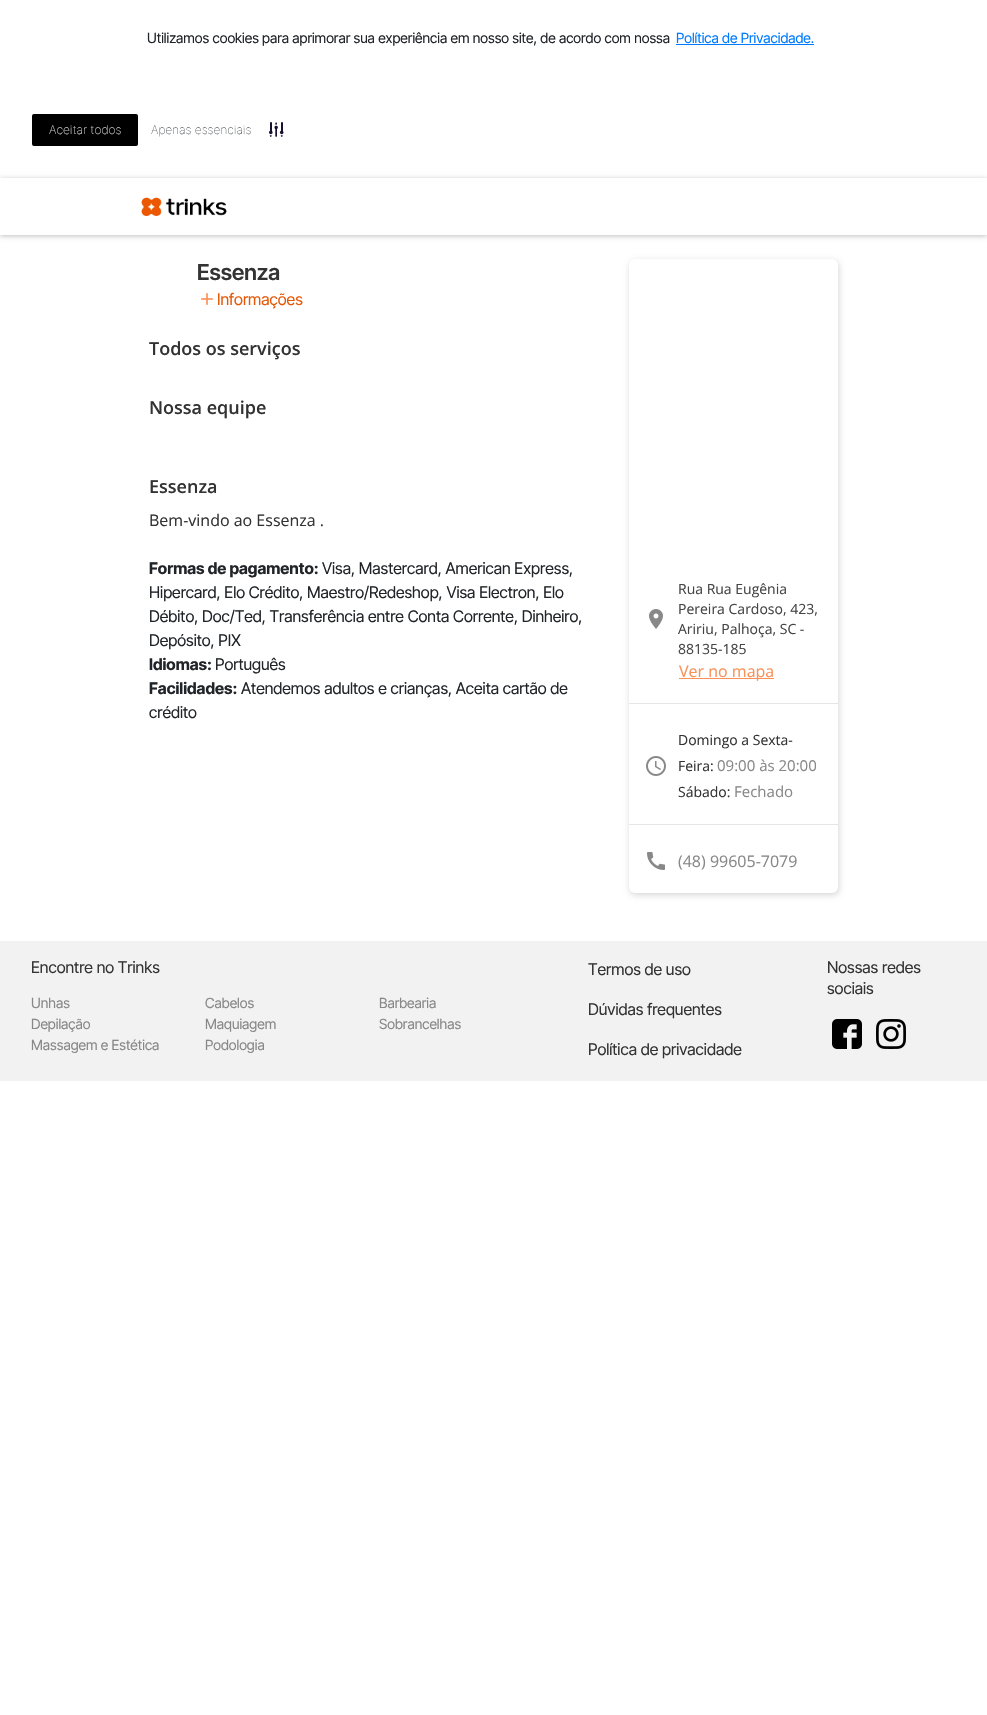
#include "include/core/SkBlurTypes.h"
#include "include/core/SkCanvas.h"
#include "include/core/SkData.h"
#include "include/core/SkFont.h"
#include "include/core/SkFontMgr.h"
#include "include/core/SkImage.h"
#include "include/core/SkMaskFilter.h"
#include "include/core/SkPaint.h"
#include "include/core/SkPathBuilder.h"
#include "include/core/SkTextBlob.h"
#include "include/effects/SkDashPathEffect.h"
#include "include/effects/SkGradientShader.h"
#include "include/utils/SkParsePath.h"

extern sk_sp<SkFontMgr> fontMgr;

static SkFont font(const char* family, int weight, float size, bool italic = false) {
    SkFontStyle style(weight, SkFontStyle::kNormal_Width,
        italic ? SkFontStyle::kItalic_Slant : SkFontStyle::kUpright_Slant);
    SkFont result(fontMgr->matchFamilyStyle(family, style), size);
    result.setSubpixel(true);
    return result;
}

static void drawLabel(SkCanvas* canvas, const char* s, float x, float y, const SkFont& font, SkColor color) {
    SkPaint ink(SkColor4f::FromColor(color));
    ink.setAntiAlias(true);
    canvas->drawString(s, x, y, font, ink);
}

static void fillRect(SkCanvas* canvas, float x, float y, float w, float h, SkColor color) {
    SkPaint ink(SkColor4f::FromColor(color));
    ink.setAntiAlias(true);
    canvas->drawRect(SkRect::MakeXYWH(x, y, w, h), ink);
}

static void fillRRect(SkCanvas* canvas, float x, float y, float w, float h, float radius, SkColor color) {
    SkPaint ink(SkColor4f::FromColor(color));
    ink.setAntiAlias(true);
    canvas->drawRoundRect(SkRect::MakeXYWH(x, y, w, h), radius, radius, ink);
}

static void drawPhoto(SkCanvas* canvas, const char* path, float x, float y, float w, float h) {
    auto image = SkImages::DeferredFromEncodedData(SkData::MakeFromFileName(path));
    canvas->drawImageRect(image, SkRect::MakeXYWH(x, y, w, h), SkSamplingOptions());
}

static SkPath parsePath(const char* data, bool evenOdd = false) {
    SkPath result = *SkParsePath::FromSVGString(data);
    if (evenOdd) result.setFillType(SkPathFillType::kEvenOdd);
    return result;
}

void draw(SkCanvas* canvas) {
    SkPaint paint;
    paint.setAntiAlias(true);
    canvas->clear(0xFFFFFFFF);
    SkFont font1 = font("Inter Tight", 400, 14);
    drawLabel(canvas, "Utilizamos cookies para aprimorar sua experiência em nosso site, de acordo com nossa", 147, 43, font1, 0xFF212529);
    drawLabel(canvas, "Política de Privacidade.", 676, 43, font1, 0xFF007BFF);
    fillRect(canvas, 676, 44, 138, 1, 0xFF007BFF);
    fillRRect(canvas, 32, 114, 106, 32, 2, 0xFF000000);
    SkFont font2 = font("Inter Tight", 100, 12);
    drawLabel(canvas, "Aceitar todos", 49, 134, font2, 0xFFFFFFFF);
    drawLabel(canvas, "Apenas essenciais", 151, 134, font2, 0xFF212529);
    drawPhoto(canvas, "assets/img1.png", 269, 122, 15, 15);
    canvas->save();
    canvas->clipPath(parsePath("M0 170H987V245H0ZM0 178H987V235H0Z", true), true);
    paint.setColor(0x40000000);
    paint.setMaskFilter(SkMaskFilter::MakeBlur(kNormal_SkBlurStyle, 2.5f));
    canvas->drawRect(SkRect::MakeXYWH(0, 179, 987, 57), paint);
    paint.setMaskFilter(nullptr);
    canvas->restore();
    drawPhoto(canvas, "assets/img2.png", 141, 197, 86, 19);
    SkFont font3 = font("Inter Tight", 600, 22);
    drawLabel(canvas, "Essenza", 197, 280, font3, 0xFF333333);
    drawPhoto(canvas, "assets/img3.png", 201, 293, 12, 12);
    SkFont font4 = font("Inter Tight", 400, 16);
    drawLabel(canvas, "Informações", 217, 305, font4, 0xFFE55807);
    SkFont font5 = font("Open Sans", 600, 18);
    drawLabel(canvas, "Todos os serviços", 149, 355, font5, 0xFF333333);
    drawLabel(canvas, "Nossa equipe", 149, 414, font5, 0xFF333333);
    drawLabel(canvas, "Essenza", 149, 493, font5, 0xFF333333);
    SkFont font6 = font("Open Sans", 400, 16);
    drawLabel(canvas, "Bem-vindo ao Essenza .", 149, 526, font6, 0xFF333333);
    SkFont font7 = font("Inter Tight", 700, 16);
    drawLabel(canvas, "Formas de pagamento:", 149, 574, font7, 0xFF212529);
    drawLabel(canvas, "Visa, Mastercard, American Express,", 322, 574, font4, 0xFF212529);
    drawLabel(canvas, "Hipercard, Elo Crédito, Maestro/Redeshop, Visa Electron, Elo", 149, 598, font4, 0xFF212529);
    drawLabel(canvas, "Débito, Doc/Ted, Transferência entre Conta Corrente, Dinheiro,", 149, 622, font4, 0xFF212529);
    drawLabel(canvas, "Depósito, PIX", 149, 646, font4, 0xFF212529);
    drawLabel(canvas, "Idiomas:", 149, 670, font7, 0xFF212529);
    drawLabel(canvas, "Português", 215, 670, font4, 0xFF212529);
    drawLabel(canvas, "Facilidades:", 149, 694, font7, 0xFF212529);
    drawLabel(canvas, "Atendemos adultos e crianças, Aceita cartão de", 241, 694, font4, 0xFF212529);
    drawLabel(canvas, "crédito", 149, 718, font4, 0xFF212529);
    paint.setColor(0x29000000);
    paint.setMaskFilter(SkMaskFilter::MakeBlur(kNormal_SkBlurStyle, 3));
    canvas->drawRoundRect(SkRect::MakeXYWH(630, 261, 209, 634), 6, 6, paint);
    paint.setMaskFilter(nullptr);
    fillRRect(canvas, 629, 259, 209, 634, 6, 0xFFFFFFFF);
    drawPhoto(canvas, "assets/img4.png", 649, 609, 14, 20);
    SkFont font8 = font("Open Sans", 400, 14);
    drawLabel(canvas, "Rua Rua Eugênia", 678, 594, font8, 0xFF444444);
    drawLabel(canvas, "Pereira Cardoso, 423,", 678, 614, font8, 0xFF444444);
    drawLabel(canvas, "Aririu, Palhoça, SC -", 678, 634, font8, 0xFF444444);
    drawLabel(canvas, "88135-185", 678, 654, font8, 0xFF444444);
    fillRect(canvas, 679, 678, 95, 1, 0xFFF99158);
    drawLabel(canvas, "Ver no mapa", 679, 677, font6, 0xFFF99158);
    fillRect(canvas, 629, 703, 209, 1, 0xFFE6E6E6);
    drawPhoto(canvas, "assets/img5.png", 646, 756, 20, 20);
    drawLabel(canvas, "Domingo a Sexta-", 678, 745, font8, 0xFF333333);
    drawLabel(canvas, "Feira:", 678, 771, font8, 0xFF333333);
    SkFont font9 = font("Open Sans", 400, 15);
    drawLabel(canvas, "09:00 às 20:00", 717, 771, font9, 0xFF888888);
    drawLabel(canvas, "Sábado:", 678, 797, font8, 0xFF333333);
    drawLabel(canvas, "Fechado", 734, 797, font9, 0xFF888888);
    fillRect(canvas, 629, 824, 209, 1, 0xFFE6E6E6);
    drawPhoto(canvas, "assets/img6.png", 647, 852, 18, 18);
    drawLabel(canvas, "(48) 99605-7079", 678, 867, font6, 0xFF888888);
    fillRect(canvas, 0, 941, 987, 140, 0xFFF2F2F2);
    drawLabel(canvas, "Encontre no Trinks", 31, 973, font4, 0xFF333333);
    drawLabel(canvas, "Unhas", 31, 1008, font1, 0xFF888888);
    drawLabel(canvas, "Cabelos", 205, 1008, font1, 0xFF888888);
    drawLabel(canvas, "Barbearia", 379, 1008, font1, 0xFF888888);
    drawLabel(canvas, "Depilação", 31, 1029, font1, 0xFF888888);
    drawLabel(canvas, "Maquiagem", 205, 1029, font1, 0xFF888888);
    drawLabel(canvas, "Sobrancelhas", 379, 1029, font1, 0xFF888888);
    drawLabel(canvas, "Massagem e Estética", 31, 1050, font1, 0xFF888888);
    drawLabel(canvas, "Podologia", 205, 1050, font1, 0xFF888888);
    drawLabel(canvas, "Termos de uso", 588, 975, font4, 0xFF333333);
    drawLabel(canvas, "Dúvidas frequentes", 588, 1015, font4, 0xFF333333);
    drawLabel(canvas, "Política de privacidade", 588, 1055, font4, 0xFF333333);
    drawLabel(canvas, "Nossas redes", 827, 973, font4, 0xFF333333);
    drawLabel(canvas, "sociais", 827, 994, font4, 0xFF333333);
    drawPhoto(canvas, "assets/img7.png", 832, 1019, 30, 30);
    drawPhoto(canvas, "assets/img8.png", 876, 1019, 30, 30);
}
